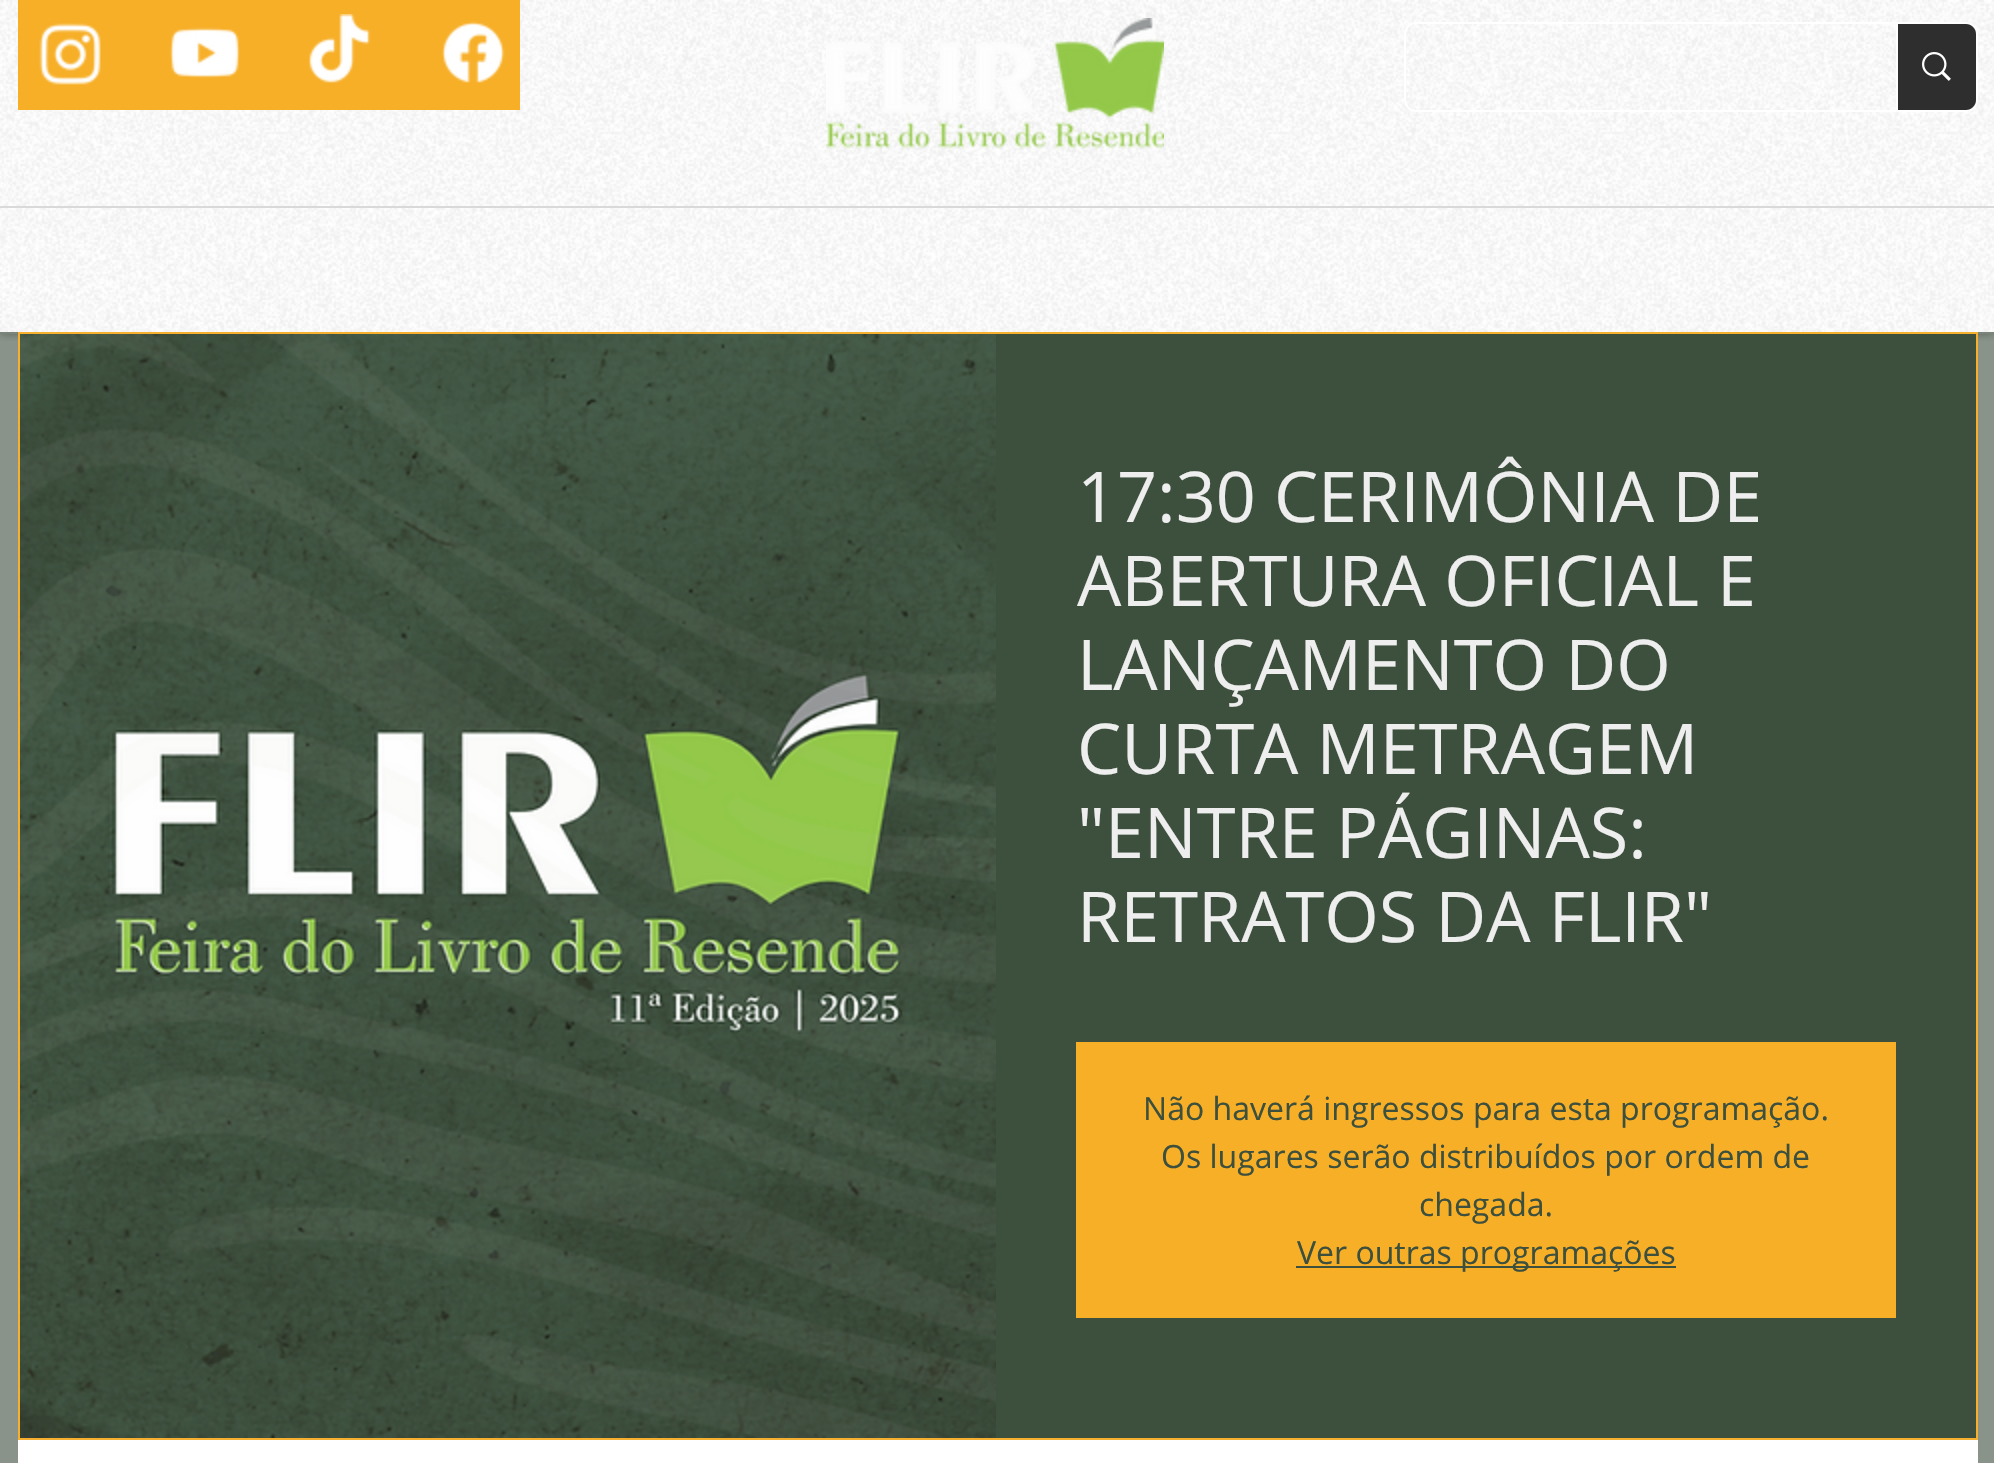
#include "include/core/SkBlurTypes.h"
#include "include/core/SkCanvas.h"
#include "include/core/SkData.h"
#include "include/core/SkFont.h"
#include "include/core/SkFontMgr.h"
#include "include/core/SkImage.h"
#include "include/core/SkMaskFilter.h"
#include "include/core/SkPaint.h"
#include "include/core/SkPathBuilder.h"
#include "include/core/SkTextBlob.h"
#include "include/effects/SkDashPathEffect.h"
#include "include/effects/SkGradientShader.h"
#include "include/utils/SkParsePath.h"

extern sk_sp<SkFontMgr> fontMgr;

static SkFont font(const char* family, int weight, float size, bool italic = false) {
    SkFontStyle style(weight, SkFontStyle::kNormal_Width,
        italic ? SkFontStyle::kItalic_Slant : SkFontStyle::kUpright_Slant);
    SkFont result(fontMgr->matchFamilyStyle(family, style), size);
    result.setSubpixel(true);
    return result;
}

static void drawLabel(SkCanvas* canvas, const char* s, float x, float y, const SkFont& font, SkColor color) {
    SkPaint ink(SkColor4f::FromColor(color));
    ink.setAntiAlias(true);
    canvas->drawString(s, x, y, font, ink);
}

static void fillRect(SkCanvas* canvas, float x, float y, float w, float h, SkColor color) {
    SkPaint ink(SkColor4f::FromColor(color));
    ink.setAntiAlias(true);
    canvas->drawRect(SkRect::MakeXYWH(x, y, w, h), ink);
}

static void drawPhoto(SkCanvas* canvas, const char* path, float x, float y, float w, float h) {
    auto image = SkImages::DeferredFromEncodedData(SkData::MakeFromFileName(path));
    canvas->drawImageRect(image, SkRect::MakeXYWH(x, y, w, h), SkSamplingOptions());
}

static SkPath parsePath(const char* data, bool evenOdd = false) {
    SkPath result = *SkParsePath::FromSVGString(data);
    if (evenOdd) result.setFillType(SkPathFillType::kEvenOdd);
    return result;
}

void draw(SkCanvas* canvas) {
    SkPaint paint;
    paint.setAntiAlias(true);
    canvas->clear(0xFFFFFFFF);
    fillRect(canvas, 0, 334, 1994, 1129, 0xFF899389);
    canvas->save();
    canvas->clipRect(SkRect::MakeXYWH(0, 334, 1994, 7));
    paint.setColor(0xB3232D23);
    paint.setMaskFilter(SkMaskFilter::MakeBlur(kNormal_SkBlurStyle, 5));
    canvas->drawRect(SkRect::MakeXYWH(0, 0, 1994, 332), paint);
    paint.setMaskFilter(nullptr);
    canvas->restore();
    drawPhoto(canvas, "assets/img1.png", 0, 0, 1994, 332);
    fillRect(canvas, 18, 0, 502, 110, 0xFFF7AF27);
    drawPhoto(canvas, "assets/img2.png", 39, 23, 62, 62);
    drawPhoto(canvas, "assets/img3.png", 169, 27, 71, 51);
    drawPhoto(canvas, "assets/img4.png", 309, 14, 62, 69);
    drawPhoto(canvas, "assets/img5.png", 441, 21, 64, 62);
    drawPhoto(canvas, "assets/img6.png", 826, 18, 338, 149);
    paint.setStroke(true);
    paint.setStrokeWidth(2);
    paint.setColor(0xFFFFFFFF);
    canvas->drawRoundRect(SkRect::MakeXYWH(1405, 23, 572, 88), 11, 11, paint);
    paint.setStroke(false);
    paint.setColor(0xFF2F2E2E);
    canvas->drawPath(parsePath("M1896 24H1966C1971.5 24 1976 28.5 1976 34V100C1976 105.5 1971.5 110 1966 110H1896Z"), paint);
    fillRect(canvas, 1896, 24, 2, 86, 0xFFFFFFFF);
    drawPhoto(canvas, "assets/img7.png", 1922, 52, 29, 29);
    fillRect(canvas, 0, 206, 1994, 2, 0xFFD9D9D9);
    fillRect(canvas, 0, 332, 1994, 2, 0xFF7A847A);
    paint.setStroke(true);
    paint.setColor(0xFFF6AF2F);
    canvas->drawRect(SkRect::MakeXYWH(19, 333, 1958, 1106), paint);
    drawPhoto(canvas, "assets/img8.png", 20, 334, 976, 1104);
    fillRect(canvas, 996, 334, 980, 1104, 0xFF3D4F3D);
    SkFont font1 = font("Open Sans", 400, 70);
    drawLabel(canvas, "17:30 CERIMÔNIA DE", 1077, 522, font1, 0xFFEEEEEE);
    drawLabel(canvas, "ABERTURA OFICIAL E", 1077, 606, font1, 0xFFEEEEEE);
    drawLabel(canvas, "LANÇAMENTO DO", 1077, 690, font1, 0xFFEEEEEE);
    drawLabel(canvas, "CURTA METRAGEM", 1077, 774, font1, 0xFFEEEEEE);
    drawLabel(canvas, "\"ENTRE PÁGINAS:", 1077, 858, font1, 0xFFEEEEEE);
    drawLabel(canvas, "RETRATOS DA FLIR\"", 1077, 942, font1, 0xFFEEEEEE);
    fillRect(canvas, 1076, 1042, 820, 276, 0xFFF7AF27);
    SkFont font2 = font("Open Sans", 400, 32);
    drawLabel(canvas, "Não haverá ingressos para esta programação.", 1143, 1120, font2, 0xFF3D4F3D);
    drawLabel(canvas, "Os lugares serão distribuídos por ordem de", 1161, 1168, font2, 0xFF3D4F3D);
    drawLabel(canvas, "chegada.", 1419, 1216, font2, 0xFF3D4F3D);
    fillRect(canvas, 1296, 1266, 380, 2, 0xFF3D4F3D);
    drawLabel(canvas, "Ver outras programações", 1297, 1264, font2, 0xFF3D4F3D);
    fillRect(canvas, 18, 1440, 1960, 23, 0xFFFFFFFF);
}
